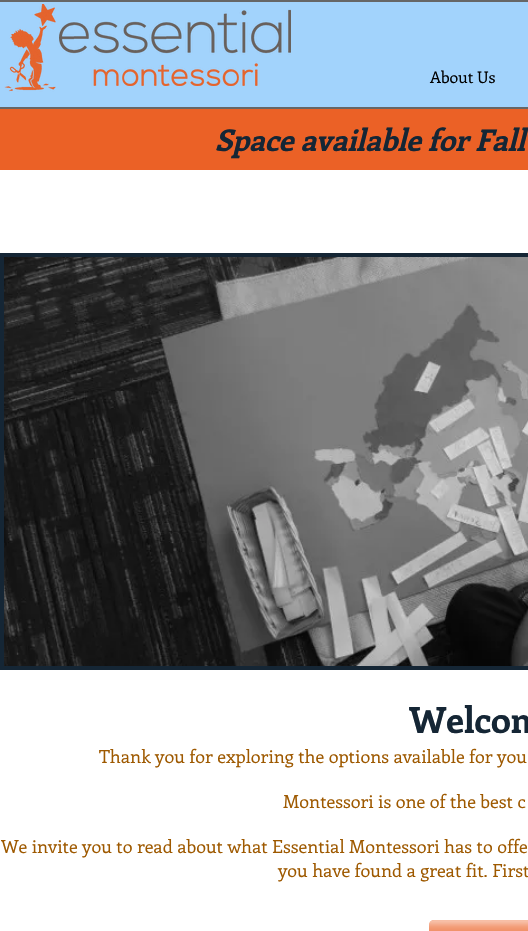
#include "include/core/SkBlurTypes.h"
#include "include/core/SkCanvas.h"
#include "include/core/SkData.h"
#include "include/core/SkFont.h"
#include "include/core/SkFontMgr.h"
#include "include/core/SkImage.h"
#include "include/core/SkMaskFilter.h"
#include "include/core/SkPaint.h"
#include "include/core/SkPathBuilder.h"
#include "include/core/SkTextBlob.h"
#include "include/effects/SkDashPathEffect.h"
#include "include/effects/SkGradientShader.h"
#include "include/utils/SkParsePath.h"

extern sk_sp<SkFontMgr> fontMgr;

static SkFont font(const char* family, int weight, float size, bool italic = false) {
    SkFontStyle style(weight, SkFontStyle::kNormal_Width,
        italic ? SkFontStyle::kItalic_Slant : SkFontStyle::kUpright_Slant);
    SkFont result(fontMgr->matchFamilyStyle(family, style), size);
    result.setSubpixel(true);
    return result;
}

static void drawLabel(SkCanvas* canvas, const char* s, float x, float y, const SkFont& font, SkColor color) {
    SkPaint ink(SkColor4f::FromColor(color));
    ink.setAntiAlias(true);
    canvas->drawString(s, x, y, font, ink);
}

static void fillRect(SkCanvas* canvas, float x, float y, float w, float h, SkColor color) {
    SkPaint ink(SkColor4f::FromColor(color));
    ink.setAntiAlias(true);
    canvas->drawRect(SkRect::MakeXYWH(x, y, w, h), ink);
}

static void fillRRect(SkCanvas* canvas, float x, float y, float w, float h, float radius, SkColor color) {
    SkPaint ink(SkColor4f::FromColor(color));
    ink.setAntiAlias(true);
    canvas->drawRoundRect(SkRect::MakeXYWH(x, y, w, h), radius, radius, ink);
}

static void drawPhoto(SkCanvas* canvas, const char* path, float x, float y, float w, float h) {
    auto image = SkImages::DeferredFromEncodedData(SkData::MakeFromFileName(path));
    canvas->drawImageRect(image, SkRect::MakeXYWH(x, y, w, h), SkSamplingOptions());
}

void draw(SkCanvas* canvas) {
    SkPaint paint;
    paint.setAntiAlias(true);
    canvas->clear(0xFFA2D3FC);
    fillRect(canvas, 0, 0, 528, 2, 0xFF666666);
    fillRect(canvas, 0, 107, 528, 2, 0xFF666666);
    drawPhoto(canvas, "assets/img1.png", 4, 4, 52, 88);
    drawPhoto(canvas, "assets/img2.png", 59, 9, 232, 77);
    SkFont font1 = font("Enriqueta", 400, 16);
    drawLabel(canvas, "About Us", 430, 83, font1, 0xFF000000);
    fillRect(canvas, 0, 109, 528, 61, 0xFFEB6126);
    SkFont font2 = font("Enriqueta", 700, 30, true);
    drawLabel(canvas, "Space available for Fall", 215, 151, font2, 0xFF152635);
    fillRect(canvas, 0, 170, 528, 761, 0xFFFFFFFF);
    fillRect(canvas, 0, 253, 528, 417, 0xFF152635);
    drawPhoto(canvas, "assets/img3.png", 4, 257, 524, 409);
    SkFont font3 = font("Enriqueta", 700, 36);
    drawLabel(canvas, "Welcom", 409, 733, font3, 0xFF152635);
    SkFont font4 = font("Enriqueta", 400, 18);
    drawLabel(canvas, "Thank you for exploring the options available for you", 99, 763, font4, 0xFF9E5900);
    drawLabel(canvas, "Montessori is one of the best c", 283, 808, font4, 0xFF9E5900);
    drawLabel(canvas, "We invite you to read about what Essential Montessori has to offe", 1, 853, font4, 0xFF9E5900);
    drawLabel(canvas, "you have found a great fit. First", 278, 877, font4, 0xFF9E5900);
    fillRRect(canvas, 429, 920, 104, 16, 5, 0xFFEB6126);
    drawPhoto(canvas, "assets/img4.png", 429, 920, 99, 11);
}
